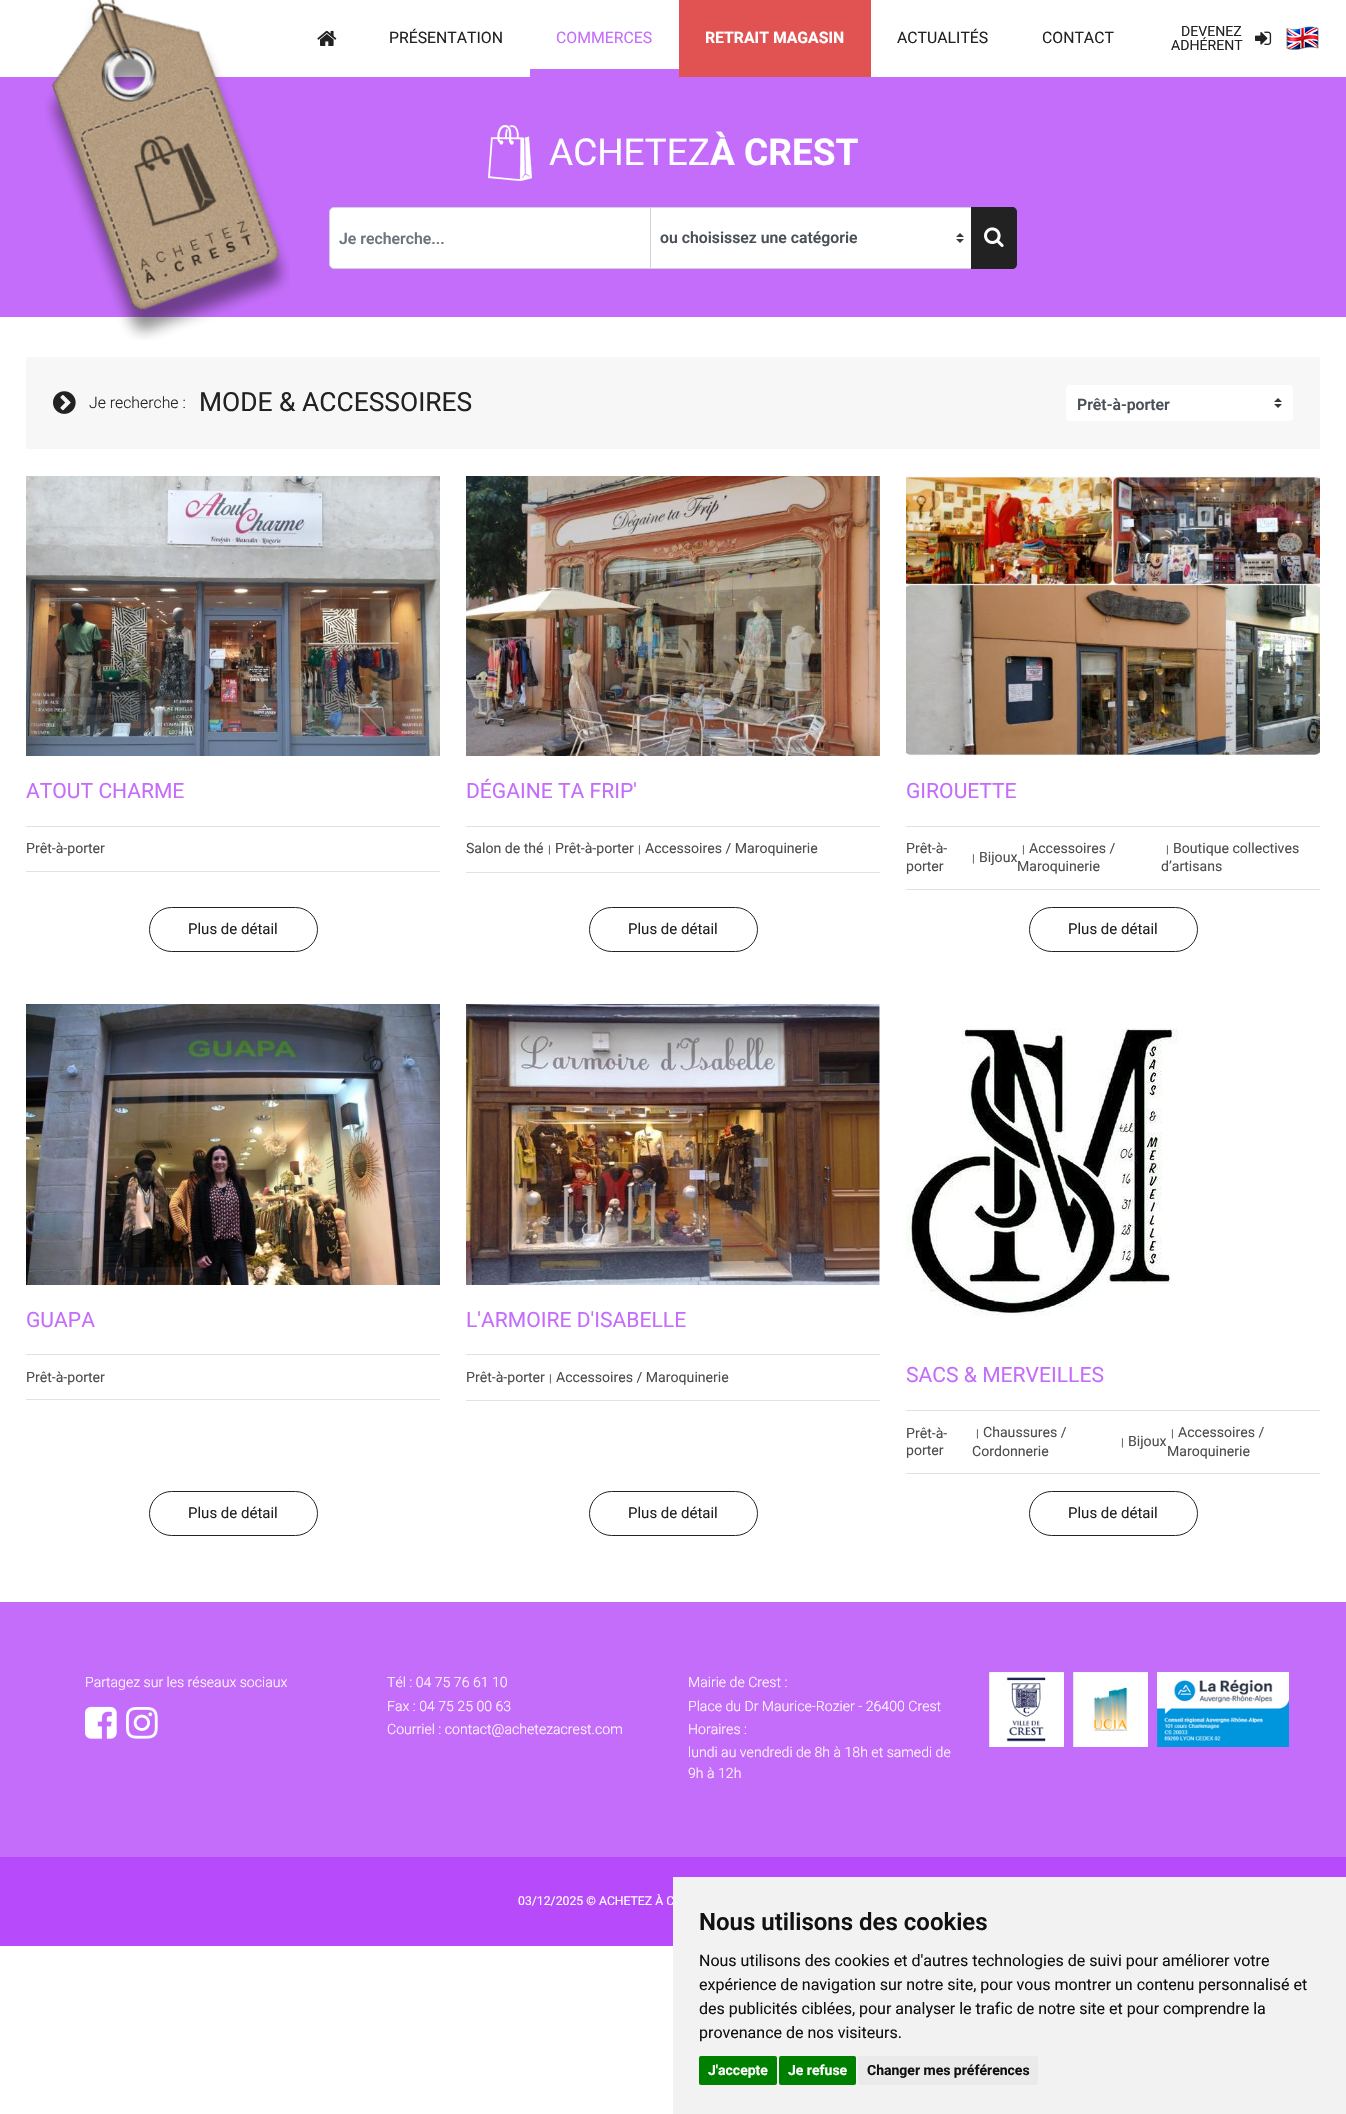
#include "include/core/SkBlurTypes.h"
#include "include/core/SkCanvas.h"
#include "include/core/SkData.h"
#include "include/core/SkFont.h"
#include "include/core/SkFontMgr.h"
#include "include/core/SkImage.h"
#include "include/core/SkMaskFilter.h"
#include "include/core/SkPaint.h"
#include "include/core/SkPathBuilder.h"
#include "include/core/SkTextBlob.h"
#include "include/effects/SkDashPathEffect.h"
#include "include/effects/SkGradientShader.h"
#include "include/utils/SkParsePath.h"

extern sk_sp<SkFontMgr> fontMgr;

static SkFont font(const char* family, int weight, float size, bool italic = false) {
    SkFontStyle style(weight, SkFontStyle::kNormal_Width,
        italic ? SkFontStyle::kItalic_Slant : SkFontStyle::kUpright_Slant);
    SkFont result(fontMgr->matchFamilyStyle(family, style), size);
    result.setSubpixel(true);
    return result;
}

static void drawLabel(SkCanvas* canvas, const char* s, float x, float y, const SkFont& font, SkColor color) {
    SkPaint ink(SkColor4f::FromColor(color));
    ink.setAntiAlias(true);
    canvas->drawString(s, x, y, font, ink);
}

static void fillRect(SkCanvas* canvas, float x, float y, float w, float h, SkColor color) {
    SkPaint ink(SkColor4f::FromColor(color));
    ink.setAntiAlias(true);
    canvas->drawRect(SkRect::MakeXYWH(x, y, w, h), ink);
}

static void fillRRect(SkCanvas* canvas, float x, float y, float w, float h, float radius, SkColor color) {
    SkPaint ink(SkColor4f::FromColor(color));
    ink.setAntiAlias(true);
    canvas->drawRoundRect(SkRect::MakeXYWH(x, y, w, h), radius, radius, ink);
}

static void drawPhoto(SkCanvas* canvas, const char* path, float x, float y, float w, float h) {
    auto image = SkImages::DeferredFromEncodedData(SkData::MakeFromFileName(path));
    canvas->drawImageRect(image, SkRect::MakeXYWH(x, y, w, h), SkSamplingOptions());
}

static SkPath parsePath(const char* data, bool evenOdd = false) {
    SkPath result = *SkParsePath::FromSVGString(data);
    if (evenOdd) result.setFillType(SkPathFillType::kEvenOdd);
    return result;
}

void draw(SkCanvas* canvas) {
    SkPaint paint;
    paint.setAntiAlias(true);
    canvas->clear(0xFFFFFFFF);
    fillRect(canvas, 0, 77, 1346, 240, 0xFFC56DFB);
    drawPhoto(canvas, "assets/img1.png", 45, 0, 245, 340);
    drawPhoto(canvas, "assets/img2.png", 317, 30, 20, 16);
    SkFont font1 = font("Roboto", 400, 15.8f);
    drawLabel(canvas, "PRÉSENTATION", 389, 43, font1, 0xFF222222);
    drawLabel(canvas, "COMMERCES", 556, 43, font1, 0xFFC56DFB);
    fillRect(canvas, 530, 69, 149, 8, 0xFFC56DFB);
    fillRect(canvas, 679, 0, 192, 77, 0xFFE15352);
    SkFont font2 = font("Roboto", 700, 15.8f);
    drawLabel(canvas, "RETRAIT MAGASIN", 705, 43, font2, 0xFFFFFFFF);
    drawLabel(canvas, "ACTUALITÉS", 897, 43, font1, 0xFF222222);
    drawLabel(canvas, "CONTACT", 1042, 43, font1, 0xFF222222);
    SkFont font3 = font("Roboto", 400, 14.1f);
    drawLabel(canvas, "DEVENEZ", 1181, 36, font3, 0xFF222222);
    drawLabel(canvas, "ADHÉRENT", 1171, 50, font3, 0xFF222222);
    drawPhoto(canvas, "assets/img3.png", 1255, 31, 17, 14);
    drawPhoto(canvas, "assets/img4.png", 1286, 26, 33, 24);
    drawPhoto(canvas, "assets/img5.png", 488, 125, 44, 56);
    SkFont font4 = font("Roboto", 400, 37);
    drawLabel(canvas, "ACHETEZ", 549, 165, font4, 0xFFFFFFFF);
    SkFont font5 = font("Roboto", 700, 37);
    drawLabel(canvas, "À CREST", 710, 165, font5, 0xFFFFFFFF);
    paint.setColor(0xFFFFFFFF);
    canvas->drawPath(parsePath("M334 207.5H650.5V268.5H334C331.5 268.5 329.5 266.5 329.5 264V212C329.5 209.5 331.5 207.5 334 207.5Z"), paint);
    paint.setStroke(true);
    paint.setStrokeWidth(1);
    paint.setColor(0xFFCED4DA);
    canvas->drawPath(parsePath("M334 207.5H650.5V268.5H334C331.5 268.5 329.5 266.5 329.5 264V212C329.5 209.5 331.5 207.5 334 207.5Z"), paint);
    SkFont font6 = font("Roboto", 600, 15.8f);
    drawLabel(canvas, "Je recherche...", 339, 244, font6, 0xFF6C757D);
    fillRect(canvas, 651, 208, 320, 60, 0xFFFFFFFF);
    drawPhoto(canvas, "assets/img6.png", 956, 233, 8, 10);
    canvas->drawRect(SkRect::MakeXYWH(650.5f, 207.5f, 321, 61), paint);
    drawLabel(canvas, "ou choisissez une catégorie", 660, 243, font6, 0xFF495057);
    paint.setStroke(false);
    paint.setColor(0xFF222222);
    canvas->drawPath(parsePath("M971 207H1012C1015 207 1017 209 1017 212V264C1017 267 1015 269 1012 269H971Z"), paint);
    drawPhoto(canvas, "assets/img7.png", 984, 227, 20, 20);
    fillRect(canvas, 26, 357, 1294, 92, 0xFFF7F7F7);
    drawPhoto(canvas, "assets/img8.png", 53, 391, 23, 23);
    SkFont font7 = font("Roboto", 300, 15.8f);
    drawLabel(canvas, "Je recherche :", 89, 408, font7, 0xFF222222);
    SkFont font8 = font("Roboto", 400, 26.4f);
    drawLabel(canvas, "MODE & ACCESSOIRES", 199, 411, font8, 0xFF222222);
    fillRRect(canvas, 1066, 385, 227, 36, 4, 0xFFFFFFFF);
    drawPhoto(canvas, "assets/img6.png", 1274, 398, 8, 10);
    drawLabel(canvas, "Prêt-à-porter", 1077, 410, font6, 0xFF495057);
    drawPhoto(canvas, "assets/img9.png", 26, 476, 414, 280);
    SkFont font9 = font("Roboto", 400, 21.1f);
    drawLabel(canvas, "ATOUT CHARME", 26, 798, font9, 0xFFC56DFB);
    fillRect(canvas, 26, 826, 414, 1, 0xFFE2E2E2);
    fillRect(canvas, 26, 871, 414, 1, 0xFFE2E2E2);
    drawLabel(canvas, "Prêt-à-porter", 26, 853, font3, 0xFF4E4E4E);
    paint.setStroke(true);
    canvas->drawRoundRect(SkRect::MakeXYWH(149.5f, 907.5f, 168, 44), 22, 22, paint);
    SkFont font10 = font("Roboto", 400, 15);
    drawLabel(canvas, "Plus de détail", 188, 934, font10, 0xFF222222);
    drawPhoto(canvas, "assets/img10.png", 466, 476, 414, 280);
    drawLabel(canvas, "DÉGAINE TA FRIP'", 466, 798, font9, 0xFFC56DFB);
    fillRect(canvas, 466, 826, 414, 1, 0xFFE2E2E2);
    fillRect(canvas, 466, 872, 414, 1, 0xFFE2E2E2);
    drawLabel(canvas, "Salon de thé", 466, 853, font3, 0xFF4E4E4E);
    SkFont font11 = font("Roboto", 400, 11);
    drawLabel(canvas, "|", 548, 853, font11, 0xFF4E4E4E);
    drawLabel(canvas, "Prêt-à-porter", 555, 853, font3, 0xFF4E4E4E);
    drawLabel(canvas, "|", 638, 853, font11, 0xFF4E4E4E);
    drawLabel(canvas, "Accessoires / Maroquinerie", 645, 853, font3, 0xFF4E4E4E);
    canvas->drawRoundRect(SkRect::MakeXYWH(589.5f, 907.5f, 168, 44), 22, 22, paint);
    drawLabel(canvas, "Plus de détail", 628, 934, font10, 0xFF222222);
    drawPhoto(canvas, "assets/img11.png", 906, 476, 414, 280);
    drawLabel(canvas, "GIROUETTE", 906, 798, font9, 0xFFC56DFB);
    fillRect(canvas, 906, 826, 414, 1, 0xFFE2E2E2);
    fillRect(canvas, 906, 889, 414, 1, 0xFFE2E2E2);
    drawLabel(canvas, "Prêt-à-", 906, 853, font3, 0xFF4E4E4E);
    drawLabel(canvas, "porter", 906, 871, font3, 0xFF4E4E4E);
    drawLabel(canvas, "|", 972, 862, font11, 0xFF4E4E4E);
    drawLabel(canvas, "Bijoux", 979, 862, font3, 0xFF4E4E4E);
    drawLabel(canvas, "|", 1022, 853, font11, 0xFF4E4E4E);
    drawLabel(canvas, "Accessoires /", 1029, 853, font3, 0xFF4E4E4E);
    drawLabel(canvas, "Maroquinerie", 1017, 871, font3, 0xFF4E4E4E);
    drawLabel(canvas, "|", 1166, 853, font11, 0xFF4E4E4E);
    drawLabel(canvas, "Boutique collectives", 1173, 853, font3, 0xFF4E4E4E);
    drawLabel(canvas, "d’artisans", 1161, 871, font3, 0xFF4E4E4E);
    canvas->drawRoundRect(SkRect::MakeXYWH(1029.5f, 907.5f, 168, 44), 22, 22, paint);
    drawLabel(canvas, "Plus de détail", 1068, 934, font10, 0xFF222222);
    drawPhoto(canvas, "assets/img12.png", 26, 1004, 414, 281);
    drawLabel(canvas, "GUAPA", 26, 1327, font9, 0xFFC56DFB);
    fillRect(canvas, 26, 1354, 414, 1, 0xFFE2E2E2);
    fillRect(canvas, 26, 1399, 414, 1, 0xFFE2E2E2);
    drawLabel(canvas, "Prêt-à-porter", 26, 1382, font3, 0xFF4E4E4E);
    canvas->drawRoundRect(SkRect::MakeXYWH(149.5f, 1491.5f, 168, 44), 22, 22, paint);
    drawLabel(canvas, "Plus de détail", 188, 1518, font10, 0xFF222222);
    drawPhoto(canvas, "assets/img13.png", 466, 1004, 414, 281);
    drawLabel(canvas, "L'ARMOIRE D'ISABELLE", 466, 1327, font9, 0xFFC56DFB);
    fillRect(canvas, 466, 1354, 414, 1, 0xFFE2E2E2);
    fillRect(canvas, 466, 1400, 414, 1, 0xFFE2E2E2);
    drawLabel(canvas, "Prêt-à-porter", 466, 1382, font3, 0xFF4E4E4E);
    drawLabel(canvas, "|", 549, 1382, font11, 0xFF4E4E4E);
    drawLabel(canvas, "Accessoires / Maroquinerie", 556, 1382, font3, 0xFF4E4E4E);
    canvas->drawRoundRect(SkRect::MakeXYWH(589.5f, 1491.5f, 168, 44), 22, 22, paint);
    drawLabel(canvas, "Plus de détail", 628, 1518, font10, 0xFF222222);
    drawPhoto(canvas, "assets/img14.png", 906, 1028, 272, 288);
    drawLabel(canvas, "SACS & MERVEILLES", 906, 1382, font9, 0xFFC56DFB);
    fillRect(canvas, 906, 1410, 414, 1, 0xFFE2E2E2);
    fillRect(canvas, 906, 1473, 414, 1, 0xFFE2E2E2);
    drawLabel(canvas, "Prêt-à-", 906, 1438, font3, 0xFF4E4E4E);
    drawLabel(canvas, "porter", 906, 1455, font3, 0xFF4E4E4E);
    drawLabel(canvas, "|", 976, 1437, font11, 0xFF4E4E4E);
    drawLabel(canvas, "Chaussures /", 983, 1437, font3, 0xFF4E4E4E);
    drawLabel(canvas, "Cordonnerie", 972, 1456, font3, 0xFF4E4E4E);
    drawLabel(canvas, "|", 1121, 1446, font11, 0xFF4E4E4E);
    drawLabel(canvas, "Bijoux", 1128, 1446, font3, 0xFF4E4E4E);
    drawLabel(canvas, "|", 1171, 1437, font11, 0xFF4E4E4E);
    drawLabel(canvas, "Accessoires /", 1178, 1437, font3, 0xFF4E4E4E);
    drawLabel(canvas, "Maroquinerie", 1167, 1456, font3, 0xFF4E4E4E);
    canvas->drawRoundRect(SkRect::MakeXYWH(1029.5f, 1491.5f, 168, 44), 22, 22, paint);
    drawLabel(canvas, "Plus de détail", 1068, 1518, font10, 0xFF222222);
    fillRect(canvas, 0, 1602, 1346, 255, 0xFFC56DFB);
    SkFont font12 = font("Roboto", 300, 14.1f);
    drawLabel(canvas, "Partagez sur les réseaux sociaux", 85, 1687, font12, 0xFFFFFFFF);
    drawPhoto(canvas, "assets/img15.png", 85, 1706, 32, 33);
    drawPhoto(canvas, "assets/img16.png", 126, 1706, 32, 33);
    drawLabel(canvas, "Tél : 04 75 76 61 10", 387, 1687, font12, 0xFFFFFFFF);
    drawLabel(canvas, "Fax : 04 75 25 00 63", 387, 1711, font12, 0xFFFFFFFF);
    drawLabel(canvas, "Courriel : contact@achetezacrest.com", 387, 1734, font12, 0xFFFFFFFF);
    drawLabel(canvas, "Mairie de Crest :", 688, 1687, font12, 0xFFFFFFFF);
    drawLabel(canvas, "Place du Dr Maurice-Rozier - 26400 Crest", 688, 1711, font12, 0xFFFFFFFF);
    drawLabel(canvas, "Horaires :", 688, 1734, font12, 0xFFFFFFFF);
    drawLabel(canvas, "lundi au vendredi de 8h à 18h et samedi de", 688, 1757, font12, 0xFFFFFFFF);
    drawLabel(canvas, "9h à 12h", 688, 1778, font12, 0xFFFFFFFF);
    drawPhoto(canvas, "assets/img17.png", 989, 1672, 75, 75);
    drawPhoto(canvas, "assets/img18.png", 1073, 1672, 75, 75);
    drawPhoto(canvas, "assets/img19.png", 1157, 1672, 132, 75);
    fillRect(canvas, 0, 1857, 1346, 89, 0xFFB74AFA);
    SkFont font13 = font("Roboto", 400, 12.25f);
    drawLabel(canvas, "03/12/2025 © ACHETEZ À C", 518, 1905, font13, 0xFFFFFFFF);
    fillRect(canvas, 673, 1877, 673, 237, 0xFFF2F2F2);
    SkFont font14 = font("Roboto", 600, 24);
    drawLabel(canvas, "Nous utilisons des cookies", 699, 1930, font14, 0xFF111111);
    SkFont font15 = font("Roboto", 400, 16);
    drawLabel(canvas, "Nous utilisons des cookies et d'autres technologies de suivi pour améliorer votre", 699, 1966, font15, 0xFF111111);
    drawLabel(canvas, "expérience de navigation sur notre site, pour vous montrer un contenu personnalisé et", 699, 1990, font15, 0xFF111111);
    drawLabel(canvas, "des publicités ciblées, pour analyser le trafic de notre site et pour comprendre la", 699, 2014, font15, 0xFF111111);
    drawLabel(canvas, "provenance de nos visiteurs.", 699, 2038, font15, 0xFF111111);
    fillRRect(canvas, 699, 2056, 78, 29, 2, 0xFF008000);
    SkFont font16 = font("Roboto", 700, 14);
    drawLabel(canvas, "J'accepte", 708, 2075, font16, 0xFFFFFFFF);
    fillRRect(canvas, 779, 2056, 77, 29, 2, 0xFF008000);
    drawLabel(canvas, "Je refuse", 788, 2075, font16, 0xFFFFFFFF);
    fillRRect(canvas, 858, 2056, 180, 29, 2, 0xFFEAEAEA);
    drawLabel(canvas, "Changer mes préférences", 867, 2075, font16, 0xFF111111);
}
